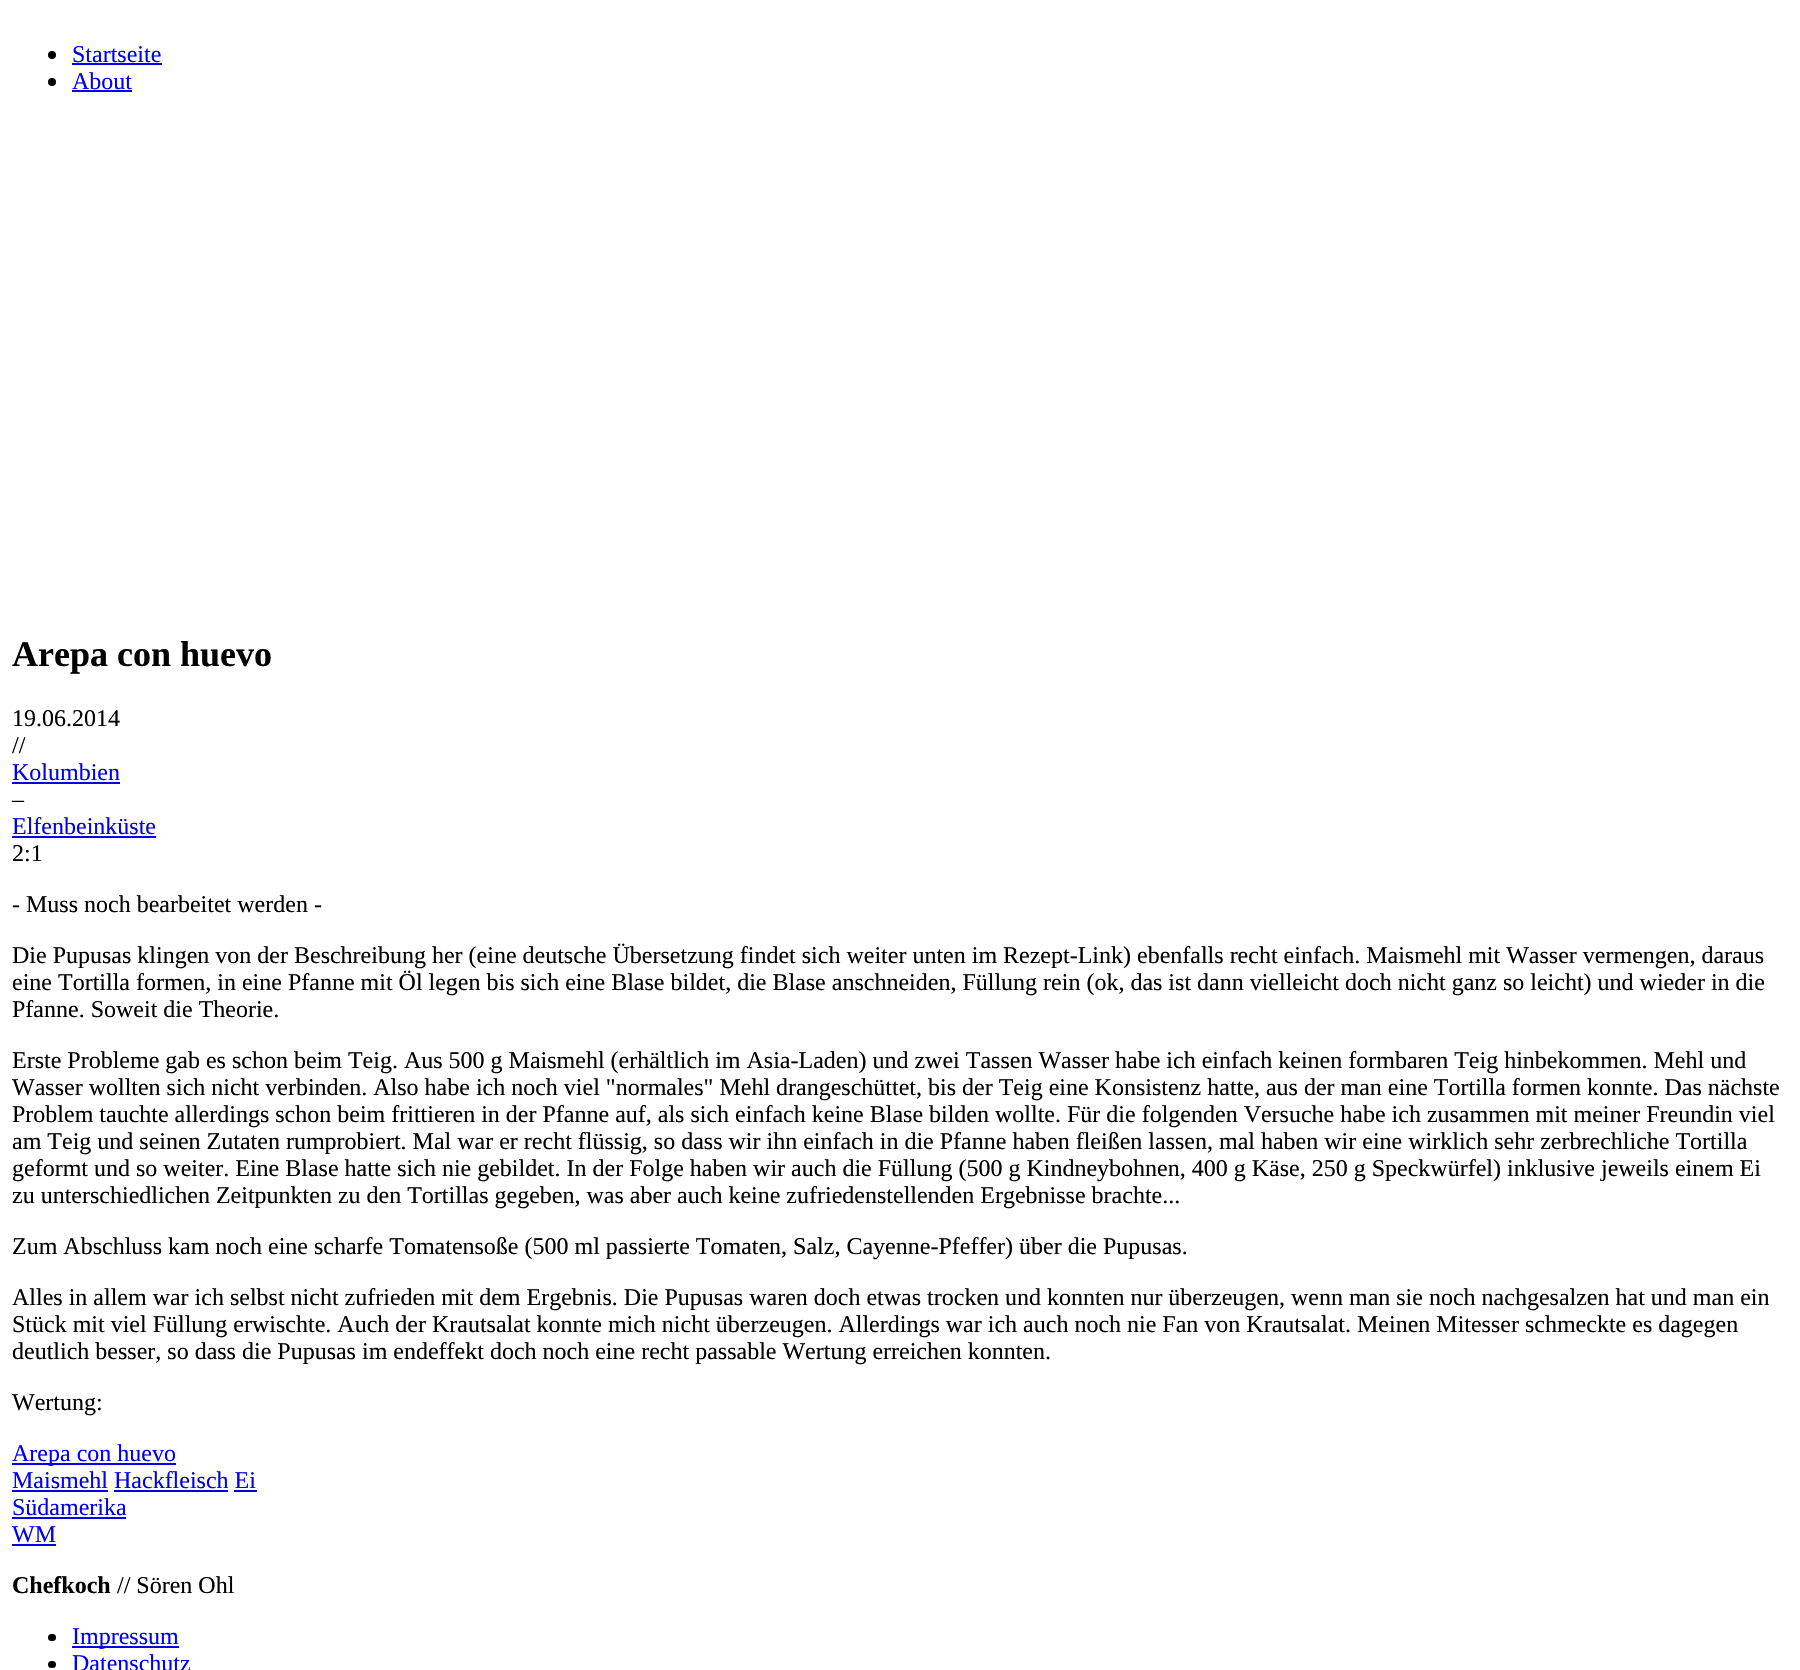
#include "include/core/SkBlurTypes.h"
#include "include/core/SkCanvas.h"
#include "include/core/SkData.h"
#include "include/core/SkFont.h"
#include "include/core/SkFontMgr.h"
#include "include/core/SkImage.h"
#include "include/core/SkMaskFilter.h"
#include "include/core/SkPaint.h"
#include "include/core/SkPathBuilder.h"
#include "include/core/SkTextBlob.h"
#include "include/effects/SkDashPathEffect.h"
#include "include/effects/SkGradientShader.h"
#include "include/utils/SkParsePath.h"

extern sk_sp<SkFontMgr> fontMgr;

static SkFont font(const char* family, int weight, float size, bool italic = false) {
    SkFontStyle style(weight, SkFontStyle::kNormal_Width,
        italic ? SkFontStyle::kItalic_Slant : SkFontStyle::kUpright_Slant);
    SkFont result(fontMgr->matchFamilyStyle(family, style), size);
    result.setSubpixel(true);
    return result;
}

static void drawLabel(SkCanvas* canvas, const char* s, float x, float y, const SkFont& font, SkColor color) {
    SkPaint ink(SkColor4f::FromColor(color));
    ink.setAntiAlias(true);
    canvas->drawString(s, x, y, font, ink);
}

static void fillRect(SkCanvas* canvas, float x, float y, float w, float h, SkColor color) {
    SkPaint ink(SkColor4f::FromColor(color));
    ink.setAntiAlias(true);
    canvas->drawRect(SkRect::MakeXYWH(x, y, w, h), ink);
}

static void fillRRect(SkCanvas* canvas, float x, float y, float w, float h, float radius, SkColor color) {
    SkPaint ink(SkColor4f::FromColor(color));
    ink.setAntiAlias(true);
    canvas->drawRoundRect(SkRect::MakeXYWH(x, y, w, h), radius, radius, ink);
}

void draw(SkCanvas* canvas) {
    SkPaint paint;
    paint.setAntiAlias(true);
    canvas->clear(0xFFFFFFFF);
    paint.setColor(0xFF000000);
    canvas->drawCircle(52, 55, 4, paint);
    SkFont font1 = font("Liberation Serif", 400, 24);
    drawLabel(canvas, "Startseite", 72, 62, font1, 0xFF0000EE);
    fillRect(canvas, 72, 63, 90, 2, 0xFF0000EE);
    canvas->drawCircle(52, 82, 4, paint);
    drawLabel(canvas, "About", 72, 89, font1, 0xFF0000EE);
    fillRect(canvas, 72, 90, 60, 2, 0xFF0000EE);
    SkFont font2 = font("Liberation Serif", 700, 36);
    drawLabel(canvas, "Arepa con huevo", 12, 666, font2, 0xFF000000);
    drawLabel(canvas, "19.06.2014", 12, 726, font1, 0xFF000000);
    drawLabel(canvas, "//", 12, 753, font1, 0xFF000000);
    drawLabel(canvas, "Kolumbien", 12, 780, font1, 0xFF0000EE);
    fillRect(canvas, 12, 782, 108, 2, 0xFF0000EE);
    drawLabel(canvas, "–", 12, 807, font1, 0xFF000000);
    drawLabel(canvas, "Elfenbeinküste", 12, 834, font1, 0xFF0000EE);
    fillRect(canvas, 12, 836, 144, 2, 0xFF0000EE);
    drawLabel(canvas, "2:1", 12, 861, font1, 0xFF000000);
    drawLabel(canvas, "- Muss noch bearbeitet werden -", 12, 912, font1, 0xFF000000);
    drawLabel(canvas, "Die Pupusas klingen von der Beschreibung her (eine deutsche Übersetzung findet sich weiter unten im Rezept-Link) ebenfalls recht einfach. Maismehl mit Wasser vermengen, daraus", 12, 963, font1, 0xFF000000);
    drawLabel(canvas, "eine Tortilla formen, in eine Pfanne mit Öl legen bis sich eine Blase bildet, die Blase anschneiden, Füllung rein (ok, das ist dann vielleicht doch nicht ganz so leicht) und wieder in die", 12, 990, font1, 0xFF000000);
    drawLabel(canvas, "Pfanne. Soweit die Theorie.", 12, 1017, font1, 0xFF000000);
    drawLabel(canvas, "Erste Probleme gab es schon beim Teig. Aus 500 g Maismehl (erhältlich im Asia-Laden) und zwei Tassen Wasser habe ich einfach keinen formbaren Teig hinbekommen. Mehl und", 12, 1068, font1, 0xFF000000);
    drawLabel(canvas, "Wasser wollten sich nicht verbinden. Also habe ich noch viel \"normales\" Mehl drangeschüttet, bis der Teig eine Konsistenz hatte, aus der man eine Tortilla formen konnte. Das nächste", 12, 1095, font1, 0xFF000000);
    drawLabel(canvas, "Problem tauchte allerdings schon beim frittieren in der Pfanne auf, als sich einfach keine Blase bilden wollte. Für die folgenden Versuche habe ich zusammen mit meiner Freundin viel", 12, 1122, font1, 0xFF000000);
    drawLabel(canvas, "am Teig und seinen Zutaten rumprobiert. Mal war er recht flüssig, so dass wir ihn einfach in die Pfanne haben fleißen lassen, mal haben wir eine wirklich sehr zerbrechliche Tortilla", 12, 1149, font1, 0xFF000000);
    drawLabel(canvas, "geformt und so weiter. Eine Blase hatte sich nie gebildet. In der Folge haben wir auch die Füllung (500 g Kindneybohnen, 400 g Käse, 250 g Speckwürfel) inklusive jeweils einem Ei", 12, 1176, font1, 0xFF000000);
    drawLabel(canvas, "zu unterschiedlichen Zeitpunkten zu den Tortillas gegeben, was aber auch keine zufriedenstellenden Ergebnisse brachte...", 12, 1203, font1, 0xFF000000);
    drawLabel(canvas, "Zum Abschluss kam noch eine scharfe Tomatensoße (500 ml passierte Tomaten, Salz, Cayenne-Pfeffer) über die Pupusas.", 12, 1254, font1, 0xFF000000);
    drawLabel(canvas, "Alles in allem war ich selbst nicht zufrieden mit dem Ergebnis. Die Pupusas waren doch etwas trocken und konnten nur überzeugen, wenn man sie noch nachgesalzen hat und man ein", 12, 1305, font1, 0xFF000000);
    drawLabel(canvas, "Stück mit viel Füllung erwischte. Auch der Krautsalat konnte mich nicht überzeugen. Allerdings war ich auch noch nie Fan von Krautsalat. Meinen Mitesser schmeckte es dagegen", 12, 1332, font1, 0xFF000000);
    drawLabel(canvas, "deutlich besser, so dass die Pupusas im endeffekt doch noch eine recht passable Wertung erreichen konnten.", 12, 1359, font1, 0xFF000000);
    drawLabel(canvas, "Wertung:", 12, 1410, font1, 0xFF000000);
    fillRect(canvas, 12, 1463, 164, 2, 0xFF0000EE);
    drawLabel(canvas, "Arepa con huevo", 12, 1461, font1, 0xFF0000EE);
    drawLabel(canvas, "Maismehl Hackfleisch Ei", 12, 1488, font1, 0xFF0000EE);
    fillRect(canvas, 12, 1490, 96, 2, 0xFF0000EE);
    fillRect(canvas, 114, 1490, 114, 2, 0xFF0000EE);
    fillRect(canvas, 234, 1490, 23, 2, 0xFF0000EE);
    drawLabel(canvas, "Südamerika", 12, 1515, font1, 0xFF0000EE);
    fillRect(canvas, 12, 1517, 114, 2, 0xFF0000EE);
    drawLabel(canvas, "WM", 12, 1542, font1, 0xFF0000EE);
    fillRect(canvas, 12, 1544, 44, 2, 0xFF0000EE);
    SkFont font3 = font("Liberation Serif", 700, 24);
    drawLabel(canvas, "Chefkoch", 12, 1593, font3, 0xFF000000);
    drawLabel(canvas, "// Sören Ohl", 117, 1593, font1, 0xFF000000);
    fillRRect(canvas, 48, 1634, 8, 7, 3.5f, 0xFF000000);
    fillRect(canvas, 72, 1646, 107, 2, 0xFF0000EE);
    drawLabel(canvas, "Impressum", 72, 1644, font1, 0xFF0000EE);
    fillRRect(canvas, 48, 1661, 8, 7, 3.5f, 0xFF000000);
    drawLabel(canvas, "Datenschutz", 72, 1671, font1, 0xFF0000EE);
}
